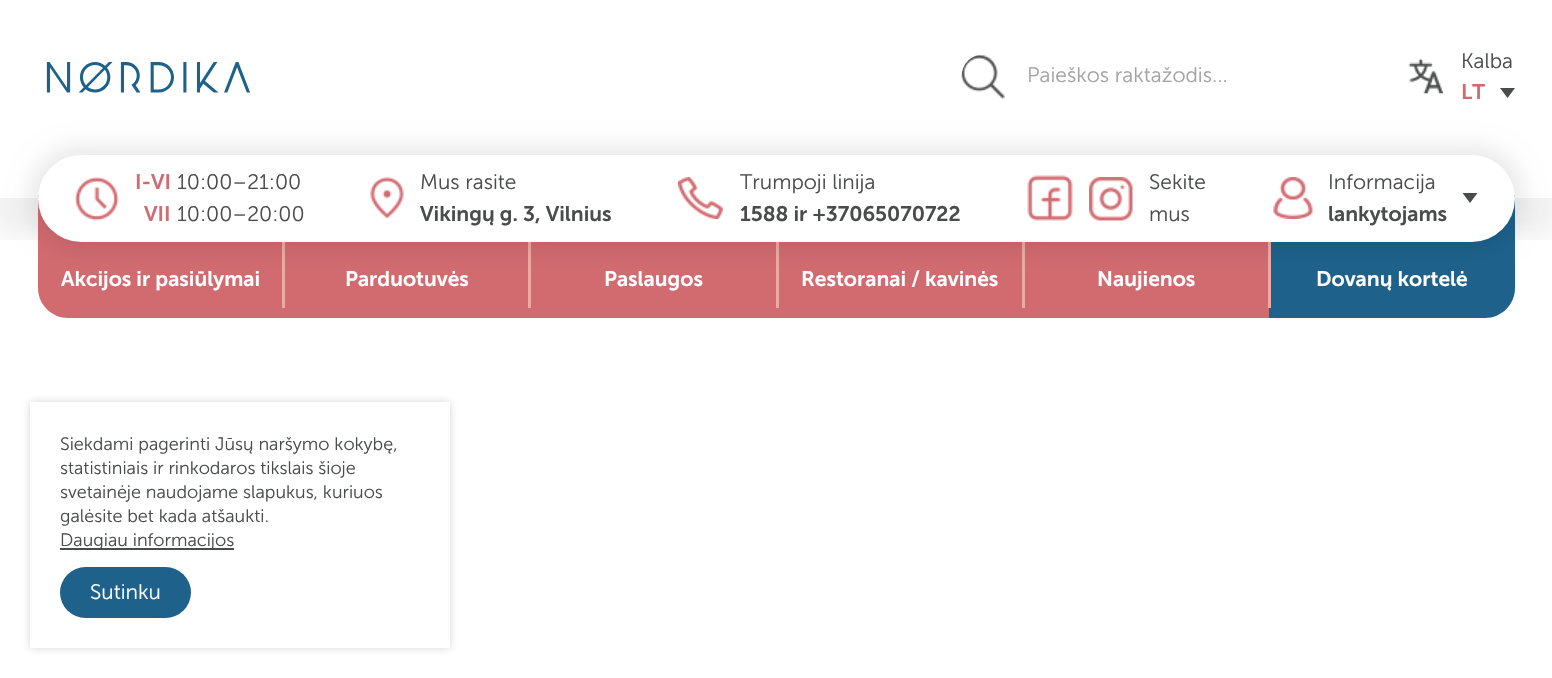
#include "include/core/SkBlurTypes.h"
#include "include/core/SkCanvas.h"
#include "include/core/SkData.h"
#include "include/core/SkFont.h"
#include "include/core/SkFontMgr.h"
#include "include/core/SkImage.h"
#include "include/core/SkMaskFilter.h"
#include "include/core/SkPaint.h"
#include "include/core/SkPathBuilder.h"
#include "include/core/SkTextBlob.h"
#include "include/effects/SkDashPathEffect.h"
#include "include/effects/SkGradientShader.h"
#include "include/utils/SkParsePath.h"

extern sk_sp<SkFontMgr> fontMgr;

static SkFont font(const char* family, int weight, float size, bool italic = false) {
    SkFontStyle style(weight, SkFontStyle::kNormal_Width,
        italic ? SkFontStyle::kItalic_Slant : SkFontStyle::kUpright_Slant);
    SkFont result(fontMgr->matchFamilyStyle(family, style), size);
    result.setSubpixel(true);
    return result;
}

static void drawLabel(SkCanvas* canvas, const char* s, float x, float y, const SkFont& font, SkColor color) {
    SkPaint ink(SkColor4f::FromColor(color));
    ink.setAntiAlias(true);
    canvas->drawString(s, x, y, font, ink);
}

static void fillRect(SkCanvas* canvas, float x, float y, float w, float h, SkColor color) {
    SkPaint ink(SkColor4f::FromColor(color));
    ink.setAntiAlias(true);
    canvas->drawRect(SkRect::MakeXYWH(x, y, w, h), ink);
}

static void fillRRect(SkCanvas* canvas, float x, float y, float w, float h, float radius, SkColor color) {
    SkPaint ink(SkColor4f::FromColor(color));
    ink.setAntiAlias(true);
    canvas->drawRoundRect(SkRect::MakeXYWH(x, y, w, h), radius, radius, ink);
}

static void drawPhoto(SkCanvas* canvas, const char* path, float x, float y, float w, float h) {
    auto image = SkImages::DeferredFromEncodedData(SkData::MakeFromFileName(path));
    canvas->drawImageRect(image, SkRect::MakeXYWH(x, y, w, h), SkSamplingOptions());
}

static SkPath parsePath(const char* data, bool evenOdd = false) {
    SkPath result = *SkParsePath::FromSVGString(data);
    if (evenOdd) result.setFillType(SkPathFillType::kEvenOdd);
    return result;
}

void draw(SkCanvas* canvas) {
    SkPaint paint;
    paint.setAntiAlias(true);
    canvas->clear(0xFFFFFFFF);
    canvas->save();
    canvas->clipRect(SkRect::MakeXYWH(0, 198, 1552, 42));
    paint.setColor(0x0D000000);
    paint.setMaskFilter(SkMaskFilter::MakeBlur(kNormal_SkBlurStyle, 11));
    canvas->drawRect(SkRect::MakeXYWH(-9, 21, 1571, 216), paint);
    paint.setMaskFilter(nullptr);
    canvas->restore();
    drawPhoto(canvas, "assets/img1.png", 46, 62, 204, 31);
    drawPhoto(canvas, "assets/img2.png", 961, 54, 44, 45);
    SkFont font1 = font("Museo Sans", 300, 21);
    drawLabel(canvas, "Paieškos raktažodis...", 1027, 82, font1, 0xFFA3A3A3);
    drawPhoto(canvas, "assets/img3.png", 1408, 58, 35, 37);
    drawLabel(canvas, "Kalba", 1461, 68, font1, 0xFF4A4C4B);
    SkFont font2 = font("Museo Sans", 600, 21);
    drawLabel(canvas, "LT", 1461, 99, font2, 0xFFD16B70);
    paint.setColor(0xFF4A4C4B);
    canvas->drawPath(parsePath("M1500 88H1515L1507.5 98Z"), paint);
    paint.setColor(0xFFD16B70);
    canvas->drawPath(parsePath("M38 195H284V318H68C51.5 318 38 304.5 38 288Z"), paint);
    fillRect(canvas, 284, 242, 985, 76, 0xFFD16B70);
    fillRect(canvas, 282, 242, 3, 66, 0xFFEBABA4);
    fillRect(canvas, 528, 242, 3, 66, 0xFFEBABA4);
    fillRect(canvas, 776, 242, 3, 66, 0xFFEBABA4);
    fillRect(canvas, 1022, 242, 3, 66, 0xFFEBABA4);
    paint.setColor(0xFF1E628C);
    canvas->drawPath(parsePath("M1269 195H1515V288C1515 304.5 1501.5 318 1485 318H1269Z"), paint);
    fillRect(canvas, 1268, 242, 3, 66, 0xFFEBABA4);
    paint.setColor(0x17000000);
    paint.setMaskFilter(SkMaskFilter::MakeBlur(kNormal_SkBlurStyle, 11));
    canvas->drawRoundRect(SkRect::MakeXYWH(30, 147, 1493, 102), 51, 51, paint);
    paint.setMaskFilter(nullptr);
    fillRRect(canvas, 38, 155, 1477, 87, 43.5f, 0xFFFFFFFF);
    drawPhoto(canvas, "assets/img4.png", 75, 177, 44, 44);
    drawLabel(canvas, "I-VI", 135, 189, font2, 0xFFD16B70);
    drawLabel(canvas, "10:00–21:00", 177, 189, font1, 0xFF4A4C4B);
    drawLabel(canvas, "VII", 144, 221, font2, 0xFFD16B70);
    drawLabel(canvas, "10:00–20:00", 177, 221, font1, 0xFF4A4C4B);
    drawPhoto(canvas, "assets/img5.png", 370, 177, 34, 42);
    drawLabel(canvas, "Mus rasite", 420, 189, font1, 0xFF4A4C4B);
    drawLabel(canvas, "Vikingų g. 3, Vilnius", 420, 221, font2, 0xFF4A4C4B);
    drawPhoto(canvas, "assets/img6.png", 678, 177, 45, 42);
    drawLabel(canvas, "Trumpoji linija", 740, 189, font1, 0xFF4A4C4B);
    drawLabel(canvas, "1588 ir +37065070722", 740, 221, font2, 0xFF4A4C4B);
    drawPhoto(canvas, "assets/img7.png", 1027, 175, 46, 46);
    drawPhoto(canvas, "assets/img8.png", 1089, 177, 44, 44);
    drawLabel(canvas, "Sekite", 1149, 189, font1, 0xFF4A4C4B);
    drawLabel(canvas, "mus", 1149, 221, font1, 0xFF4A4C4B);
    drawPhoto(canvas, "assets/img9.png", 1273, 177, 40, 42);
    drawLabel(canvas, "Informacija", 1328, 189, font1, 0xFF4A4C4B);
    drawLabel(canvas, "lankytojams", 1328, 221, font2, 0xFF4A4C4B);
    paint.setColor(0xFF4A4C4B);
    canvas->drawPath(parsePath("M1462.5 193H1477.5L1470 203Z"), paint);
    drawLabel(canvas, "Akcijos ir pasiūlymai", 61, 286, font2, 0xFFFFFFFF);
    drawLabel(canvas, "Parduotuvės", 345, 286, font2, 0xFFFFFFFF);
    drawLabel(canvas, "Paslaugos", 604, 286, font2, 0xFFFFFFFF);
    drawLabel(canvas, "Restoranai / kavinės", 801, 286, font2, 0xFFFFFFFF);
    drawLabel(canvas, "Naujienos", 1097, 286, font2, 0xFFFFFFFF);
    drawLabel(canvas, "Dovanų kortelė", 1316, 286, font2, 0xFFFFFFFF);
    canvas->save();
    canvas->clipPath(parsePath("M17 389H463V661H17ZM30 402H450V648H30Z", true), true);
    paint.setColor(0x33303030);
    paint.setMaskFilter(SkMaskFilter::MakeBlur(kNormal_SkBlurStyle, 4));
    canvas->drawRect(SkRect::MakeXYWH(30, 402, 420, 246), paint);
    paint.setMaskFilter(nullptr);
    canvas->restore();
    SkFont font3 = font("Museo Sans", 300, 18);
    drawLabel(canvas, "Siekdami pagerinti Jūsų naršymo kokybę,", 60, 450, font3, 0xFF4A4C4B);
    drawLabel(canvas, "statistiniais ir rinkodaros tikslais šioje", 60, 474, font3, 0xFF4A4C4B);
    drawLabel(canvas, "svetainėje naudojame slapukus, kuriuos", 60, 498, font3, 0xFF4A4C4B);
    drawLabel(canvas, "galėsite bet kada atšaukti.", 60, 522, font3, 0xFF4A4C4B);
    fillRect(canvas, 60, 548, 174, 2, 0xFF4A4C4B);
    drawLabel(canvas, "Daugiau informacijos", 60, 546, font3, 0xFF4A4C4B);
    fillRRect(canvas, 60, 567, 131, 51, 25.5f, 0xFF1E628C);
    drawLabel(canvas, "Sutinku", 90, 599, font1, 0xFFFFFFFF);
}
